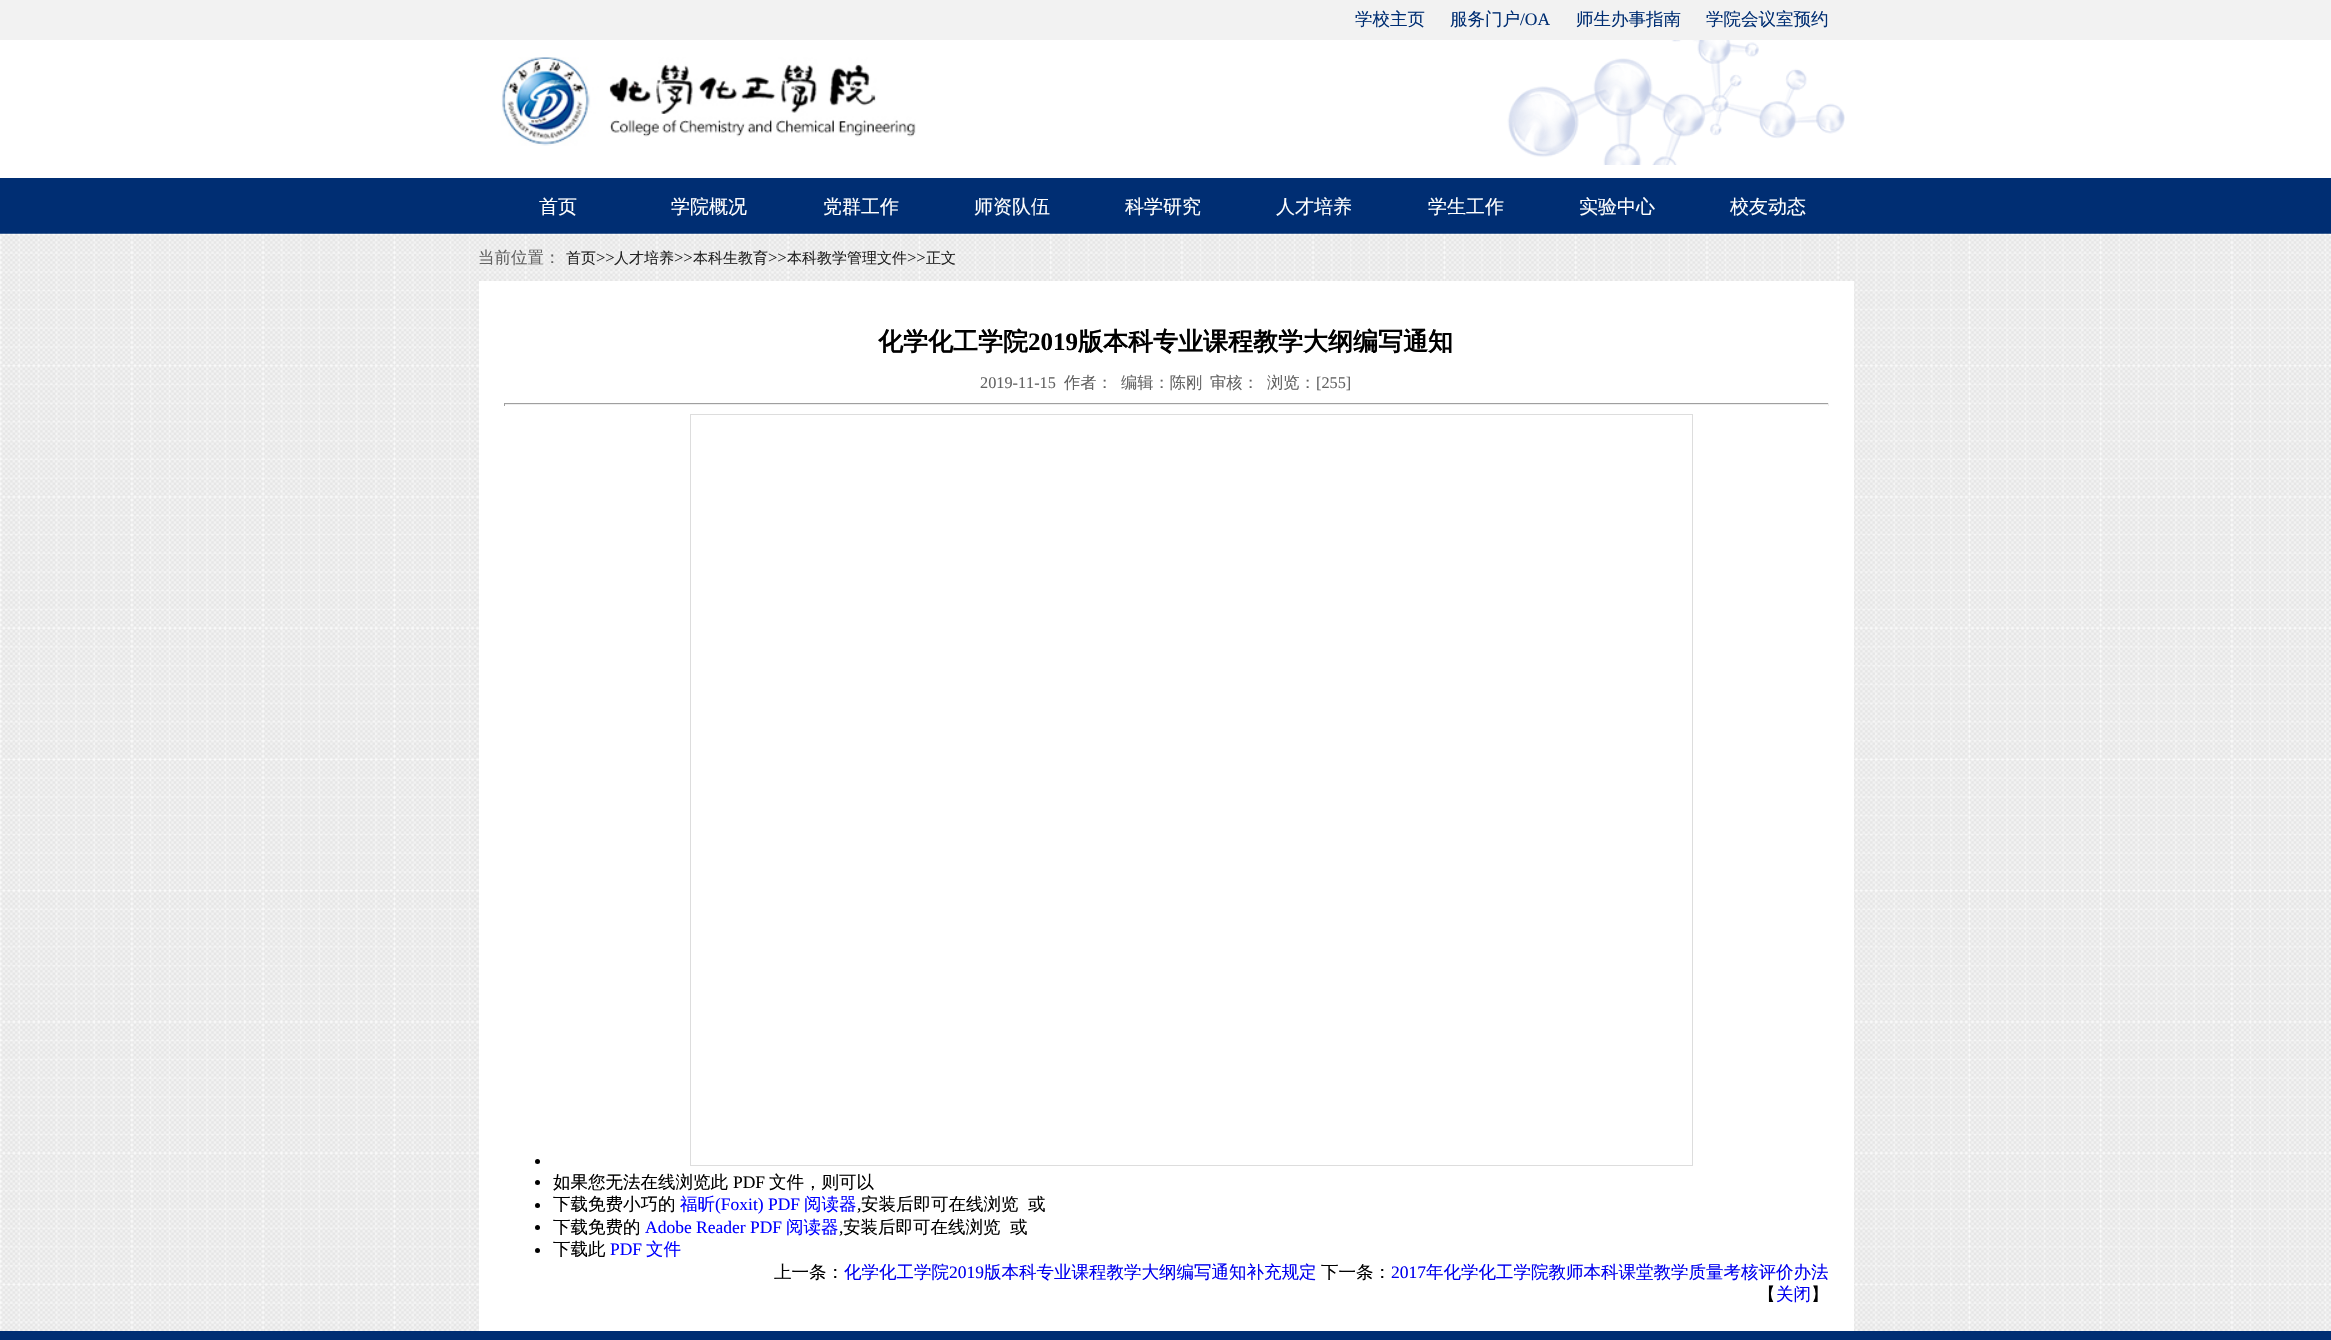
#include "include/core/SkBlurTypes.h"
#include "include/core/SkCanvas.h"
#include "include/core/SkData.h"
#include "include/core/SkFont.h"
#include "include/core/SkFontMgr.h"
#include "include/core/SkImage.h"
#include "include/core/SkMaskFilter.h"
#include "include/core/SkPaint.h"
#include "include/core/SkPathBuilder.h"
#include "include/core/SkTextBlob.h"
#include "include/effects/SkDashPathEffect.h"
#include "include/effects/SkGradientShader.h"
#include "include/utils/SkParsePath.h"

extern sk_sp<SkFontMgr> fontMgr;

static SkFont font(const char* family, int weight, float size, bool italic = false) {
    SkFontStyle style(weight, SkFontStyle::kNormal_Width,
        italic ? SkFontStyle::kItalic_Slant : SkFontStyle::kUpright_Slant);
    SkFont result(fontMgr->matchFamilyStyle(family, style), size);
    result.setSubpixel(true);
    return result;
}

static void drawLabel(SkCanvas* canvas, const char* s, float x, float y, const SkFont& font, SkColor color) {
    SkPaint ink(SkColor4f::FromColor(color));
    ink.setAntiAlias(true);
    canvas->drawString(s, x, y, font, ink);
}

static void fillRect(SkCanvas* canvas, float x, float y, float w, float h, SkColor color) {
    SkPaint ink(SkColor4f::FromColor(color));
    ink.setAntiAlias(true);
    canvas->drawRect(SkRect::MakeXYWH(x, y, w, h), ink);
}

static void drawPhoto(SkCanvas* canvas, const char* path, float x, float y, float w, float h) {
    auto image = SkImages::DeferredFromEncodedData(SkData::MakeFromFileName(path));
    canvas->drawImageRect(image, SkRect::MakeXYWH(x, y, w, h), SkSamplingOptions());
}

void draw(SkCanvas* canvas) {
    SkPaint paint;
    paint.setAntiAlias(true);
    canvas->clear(0xFFFFFFFF);
    fillRect(canvas, 0, 0, 2331, 40, 0xFFF2F2F2);
    SkFont font1 = font("WenQuanYi Zen Hei", 500, 17.5f);
    drawLabel(canvas, "学校主页", 1355, 25, font1, 0xFF002E73);
    drawLabel(canvas, "服务门户", 1450, 25, font1, 0xFF002E73);
    SkFont font2 = font("Liberation Serif", 400, 17.5f);
    drawLabel(canvas, "/OA", 1520, 25, font2, 0xFF002E73);
    drawLabel(canvas, "师生办事指南", 1576, 25, font1, 0xFF002E73);
    drawLabel(canvas, "学院会议室预约", 1706, 25, font1, 0xFF002E73);
    drawPhoto(canvas, "assets/img1.png", 501, 57, 415, 89);
    drawPhoto(canvas, "assets/img2.png", 1507, 40, 338, 125);
    fillRect(canvas, 0, 178, 2331, 56, 0xFF002E73);
    SkFont font3 = font("WenQuanYi Zen Hei", 500, 19);
    drawLabel(canvas, "首页", 539, 213, font3, 0xFFFFFFFF);
    drawLabel(canvas, "学院概况", 671, 213, font3, 0xFFFFFFFF);
    drawLabel(canvas, "党群工作", 823, 213, font3, 0xFFFFFFFF);
    drawLabel(canvas, "师资队伍", 974, 213, font3, 0xFFFFFFFF);
    drawLabel(canvas, "科学研究", 1125, 213, font3, 0xFFFFFFFF);
    drawLabel(canvas, "人才培养", 1276, 213, font3, 0xFFFFFFFF);
    drawLabel(canvas, "学生工作", 1428, 213, font3, 0xFFFFFFFF);
    drawLabel(canvas, "实验中心", 1579, 213, font3, 0xFFFFFFFF);
    drawLabel(canvas, "校友动态", 1730, 213, font3, 0xFFFFFFFF);
    drawPhoto(canvas, "assets/img3.png", 0, 233, 2331, 1098);
    SkFont font4 = font("WenQuanYi Zen Hei", 500, 16.5f);
    drawLabel(canvas, "当前位置：", 478, 263, font4, 0xFF636363);
    SkFont font5 = font("WenQuanYi Zen Hei", 500, 15);
    drawLabel(canvas, "首页", 566, 263, font5, 0xFF222222);
    SkFont font6 = font("Liberation Serif", 400, 16.5f);
    drawLabel(canvas, ">>", 596, 263, font6, 0xFF222222);
    drawLabel(canvas, "人才培养", 614, 263, font5, 0xFF222222);
    drawLabel(canvas, ">>", 674, 263, font6, 0xFF222222);
    drawLabel(canvas, "本科生教育", 693, 263, font5, 0xFF222222);
    drawLabel(canvas, ">>", 768, 263, font6, 0xFF222222);
    drawLabel(canvas, "本科教学管理文件", 787, 263, font5, 0xFF222222);
    drawLabel(canvas, ">>", 907, 263, font6, 0xFF222222);
    drawLabel(canvas, "正文", 926, 263, font5, 0xFF222222);
    fillRect(canvas, 479, 281, 1375, 1050, 0xFFFFFFFF);
    SkFont font7 = font("WenQuanYi Zen Hei", 700, 25);
    drawLabel(canvas, "化学化工学院", 878, 350, font7, 0xFF000000);
    SkFont font8 = font("Liberation Serif", 700, 25);
    drawLabel(canvas, "2019", 1028, 350, font8, 0xFF000000);
    drawLabel(canvas, "版本科专业课程教学大纲编写通知", 1078, 350, font7, 0xFF000000);
    SkFont font9 = font("Liberation Serif", 400, 16.25f);
    drawLabel(canvas, "2019-11-15", 980, 388, font9, 0xFF636363);
    SkFont font10 = font("WenQuanYi Zen Hei", 500, 16.25f);
    drawLabel(canvas, "作者：", 1064, 388, font10, 0xFF636363);
    drawLabel(canvas, "编辑：陈刚", 1121, 388, font10, 0xFF636363);
    drawLabel(canvas, "审核：", 1210, 388, font10, 0xFF636363);
    drawLabel(canvas, "浏览：", 1267, 388, font10, 0xFF636363);
    drawLabel(canvas, "[255]", 1316, 388, font9, 0xFF636363);
    fillRect(canvas, 504, 403, 1325, 1, 0xFF9F9F9F);
    fillRect(canvas, 1828, 403, 1, 3, 0xFFEEEEEE);
    fillRect(canvas, 504, 404, 1325, 1, 0xFFEEEEEE);
    fillRect(canvas, 504, 403, 1, 3, 0xFF9F9F9F);
    paint.setColor(0xFF000000);
    canvas->drawCircle(537.5f, 1161.5f, 2.5f, paint);
    paint.setStroke(true);
    paint.setStrokeWidth(1);
    paint.setColor(0xFFDDDDDD);
    canvas->drawRect(SkRect::MakeXYWH(690.5f, 414.5f, 1002, 751), paint);
    paint.setStroke(false);
    paint.setColor(0xFF000000);
    canvas->drawCircle(537.5f, 1182.5f, 2.5f, paint);
    drawLabel(canvas, "如果您无法在线浏览此", 553, 1188, font1, 0xFF000000);
    drawLabel(canvas, "PDF", 733, 1188, font2, 0xFF000000);
    drawLabel(canvas, "文件，则可以", 769, 1188, font1, 0xFF000000);
    canvas->drawCircle(537.5f, 1205.5f, 2.5f, paint);
    drawLabel(canvas, "下载免费小巧的", 553, 1210, font1, 0xFF000000);
    drawLabel(canvas, "福昕", 680, 1210, font1, 0xFF0000FF);
    drawLabel(canvas, "(Foxit) PDF", 715, 1210, font2, 0xFF0000FF);
    drawLabel(canvas, "阅读器", 804, 1210, font1, 0xFF0000FF);
    drawLabel(canvas, ",", 857, 1210, font2, 0xFF000000);
    drawLabel(canvas, "安装后即可在线浏览", 861, 1210, font1, 0xFF000000);
    drawLabel(canvas, "或", 1028, 1210, font1, 0xFF000000);
    canvas->drawCircle(537.5f, 1227.5f, 2.5f, paint);
    drawLabel(canvas, "下载免费的", 553, 1233, font1, 0xFF000000);
    drawLabel(canvas, "Adobe Reader PDF", 645, 1233, font2, 0xFF0000FF);
    drawLabel(canvas, "阅读器", 786, 1233, font1, 0xFF0000FF);
    drawLabel(canvas, ",", 839, 1233, font2, 0xFF000000);
    drawLabel(canvas, "安装后即可在线浏览", 843, 1233, font1, 0xFF000000);
    drawLabel(canvas, "或", 1010, 1233, font1, 0xFF000000);
    canvas->drawCircle(537.5f, 1250.5f, 2.5f, paint);
    drawLabel(canvas, "下载此", 553, 1255, font1, 0xFF000000);
    drawLabel(canvas, "PDF", 610, 1255, font2, 0xFF0000FF);
    drawLabel(canvas, "文件", 646, 1255, font1, 0xFF0000FF);
    drawLabel(canvas, "上一条：", 774, 1278, font1, 0xFF000000);
    drawLabel(canvas, "化学化工学院", 844, 1278, font1, 0xFF0000EE);
    drawLabel(canvas, "2019", 949, 1278, font2, 0xFF0000EE);
    drawLabel(canvas, "版本科专业课程教学大纲编写通知补充规定", 984, 1278, font1, 0xFF0000EE);
    drawLabel(canvas, "下一条：", 1321, 1278, font1, 0xFF000000);
    drawLabel(canvas, "2017", 1391, 1278, font2, 0xFF0000EE);
    drawLabel(canvas, "年化学化工学院教师本科课堂教学质量考核评价办法", 1426, 1278, font1, 0xFF0000EE);
    drawLabel(canvas, "【", 1758, 1300, font1, 0xFF000000);
    drawLabel(canvas, "关闭", 1776, 1300, font1, 0xFF0000EE);
    drawLabel(canvas, "】", 1811, 1300, font1, 0xFF000000);
    fillRect(canvas, 0, 1331, 2331, 9, 0xFF002E73);
}
